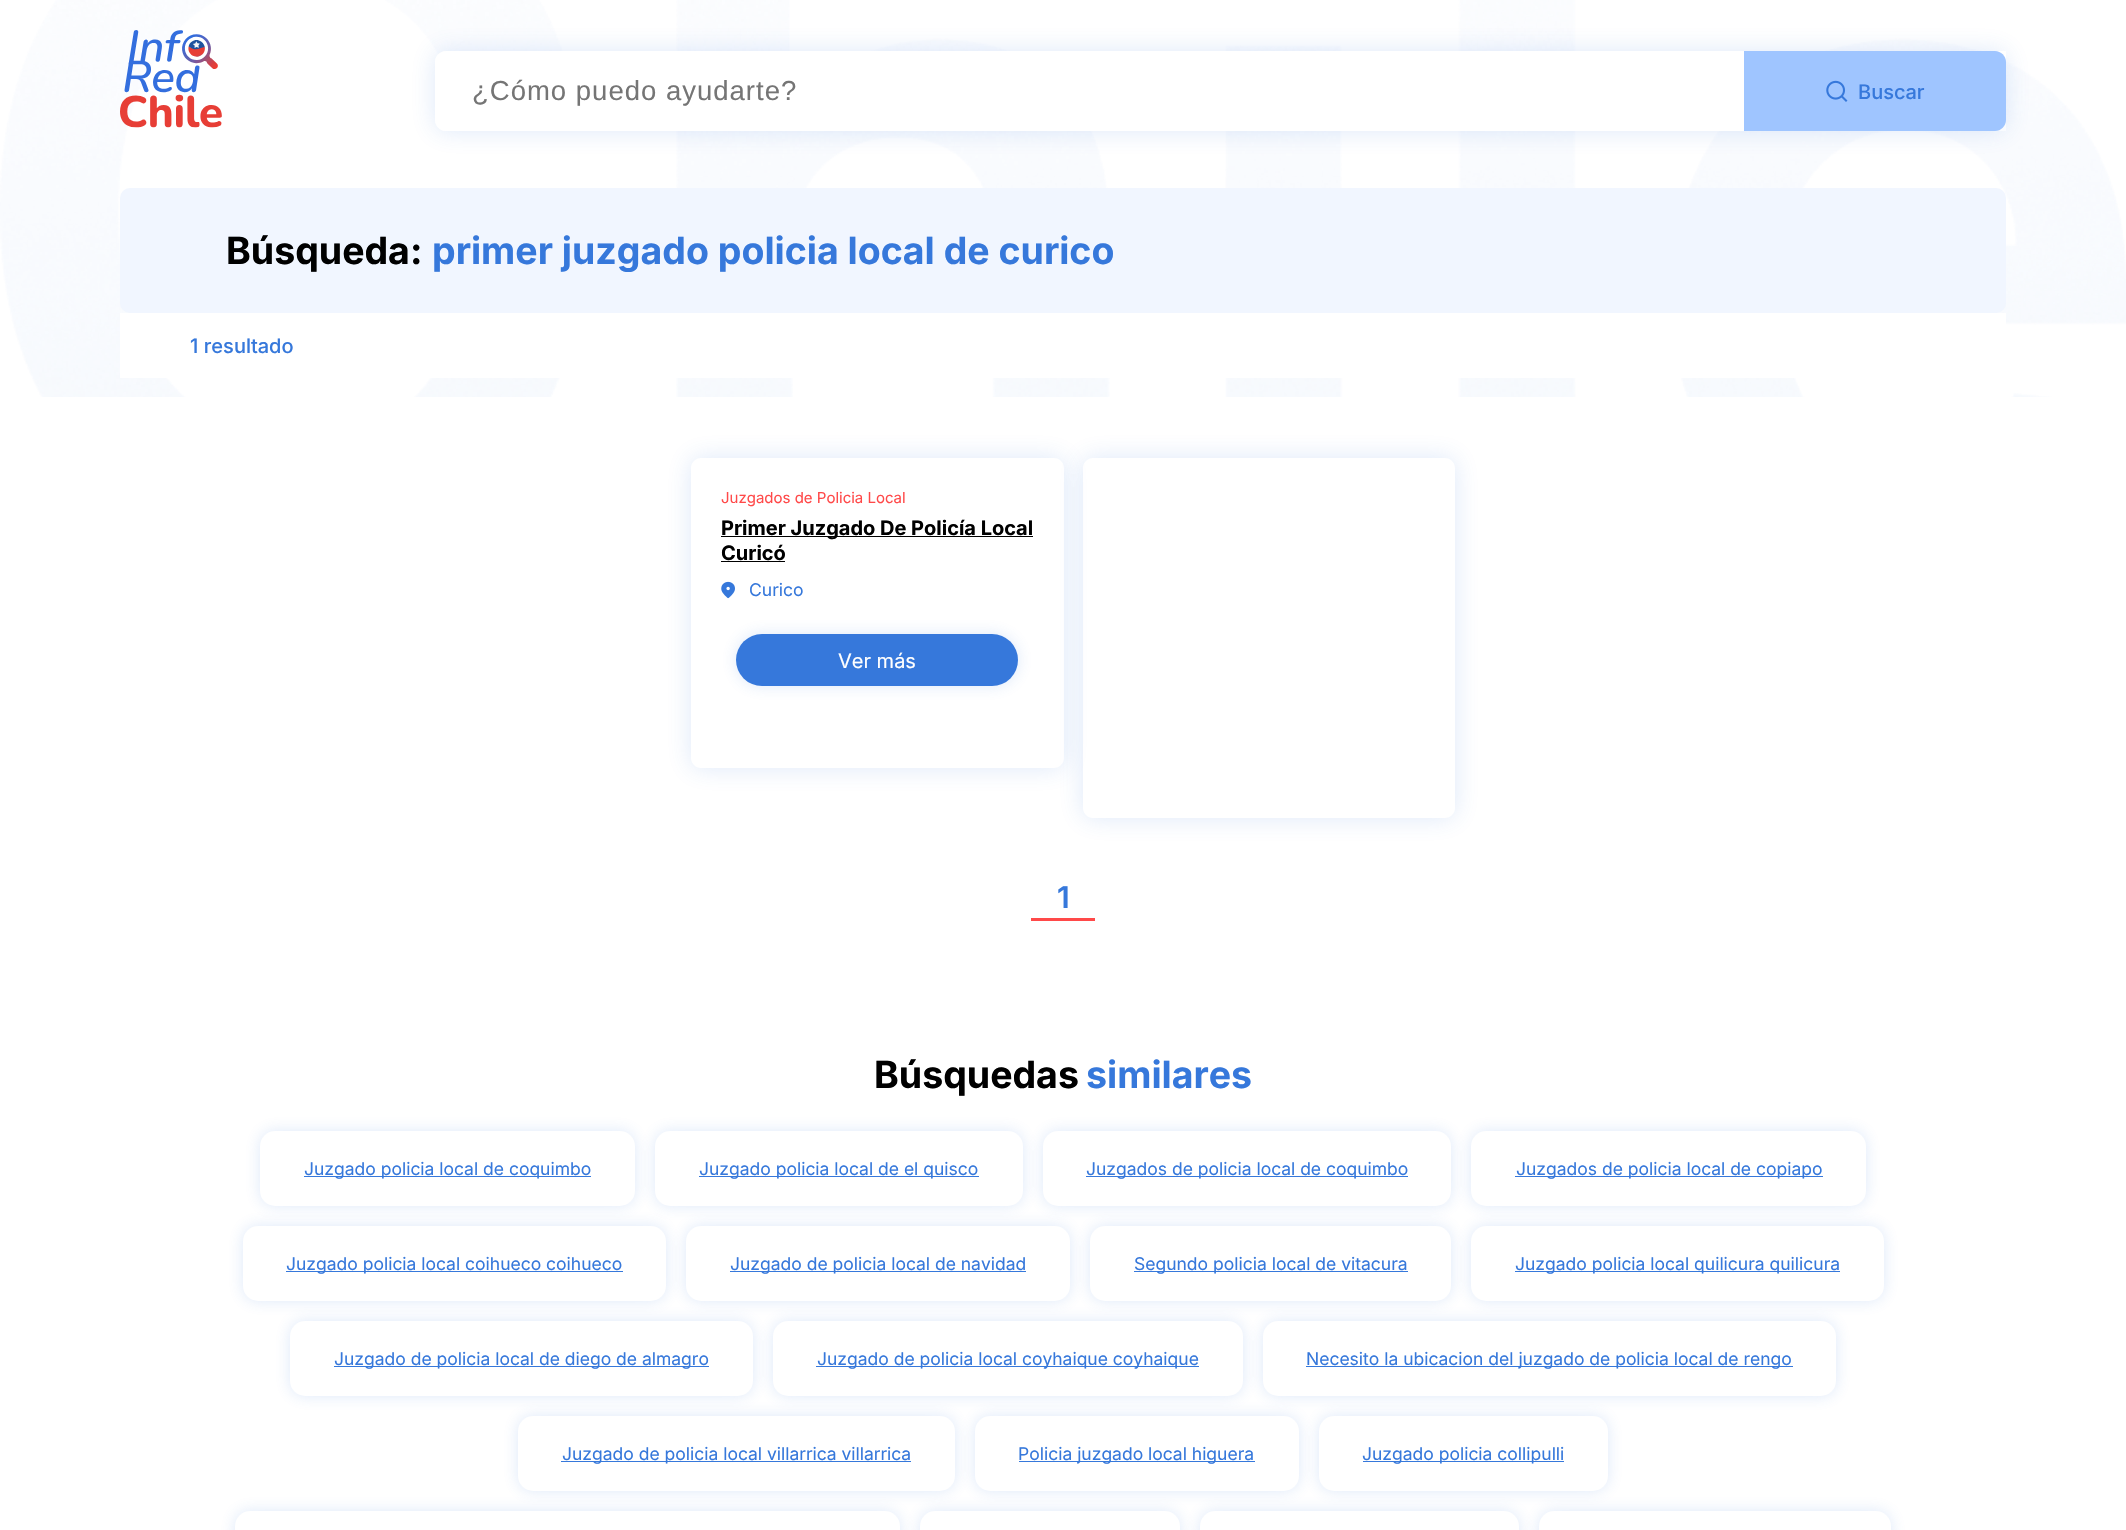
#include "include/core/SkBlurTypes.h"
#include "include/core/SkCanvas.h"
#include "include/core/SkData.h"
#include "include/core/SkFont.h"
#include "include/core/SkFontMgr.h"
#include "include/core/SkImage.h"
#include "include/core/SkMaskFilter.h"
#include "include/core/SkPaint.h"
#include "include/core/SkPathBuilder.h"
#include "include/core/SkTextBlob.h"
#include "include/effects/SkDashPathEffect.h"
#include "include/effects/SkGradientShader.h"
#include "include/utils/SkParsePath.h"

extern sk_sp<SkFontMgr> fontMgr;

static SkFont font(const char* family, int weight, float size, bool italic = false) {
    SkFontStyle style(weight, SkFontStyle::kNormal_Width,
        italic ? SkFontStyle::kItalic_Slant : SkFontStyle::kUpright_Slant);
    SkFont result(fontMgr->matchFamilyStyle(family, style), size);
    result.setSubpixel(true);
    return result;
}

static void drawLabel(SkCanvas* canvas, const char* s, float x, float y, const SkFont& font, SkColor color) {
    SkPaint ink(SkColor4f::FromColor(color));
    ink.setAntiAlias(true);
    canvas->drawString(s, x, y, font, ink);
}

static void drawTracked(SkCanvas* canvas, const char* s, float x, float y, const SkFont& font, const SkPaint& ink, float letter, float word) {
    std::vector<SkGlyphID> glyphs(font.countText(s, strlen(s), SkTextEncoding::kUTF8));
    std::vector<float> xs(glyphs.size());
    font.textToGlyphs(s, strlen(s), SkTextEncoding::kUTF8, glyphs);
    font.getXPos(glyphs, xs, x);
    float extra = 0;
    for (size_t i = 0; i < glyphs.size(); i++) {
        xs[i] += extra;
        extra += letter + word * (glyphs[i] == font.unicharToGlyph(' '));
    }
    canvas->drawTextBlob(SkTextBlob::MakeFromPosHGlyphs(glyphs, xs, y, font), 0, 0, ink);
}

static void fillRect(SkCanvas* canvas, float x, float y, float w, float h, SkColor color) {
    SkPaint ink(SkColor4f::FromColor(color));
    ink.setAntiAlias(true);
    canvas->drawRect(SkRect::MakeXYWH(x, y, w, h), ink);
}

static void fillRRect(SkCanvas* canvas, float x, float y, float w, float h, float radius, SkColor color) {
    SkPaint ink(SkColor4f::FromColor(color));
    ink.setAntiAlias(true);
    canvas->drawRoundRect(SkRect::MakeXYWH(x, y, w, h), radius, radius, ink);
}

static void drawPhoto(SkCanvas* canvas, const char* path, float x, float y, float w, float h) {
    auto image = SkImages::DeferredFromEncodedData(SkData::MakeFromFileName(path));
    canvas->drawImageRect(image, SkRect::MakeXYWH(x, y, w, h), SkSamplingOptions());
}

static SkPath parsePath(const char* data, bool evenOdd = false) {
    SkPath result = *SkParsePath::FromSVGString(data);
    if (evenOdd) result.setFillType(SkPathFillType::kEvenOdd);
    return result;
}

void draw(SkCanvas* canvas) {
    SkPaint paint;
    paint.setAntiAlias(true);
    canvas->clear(0xFFFFFFFF);
    drawPhoto(canvas, "assets/img1.png", 0, 0, 2126, 397);
    drawPhoto(canvas, "assets/img2.png", 120, 30, 102, 98);
    canvas->save();
    canvas->clipPath(parsePath("M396 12H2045V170H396ZM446 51H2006V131H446C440 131 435 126 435 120V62C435 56 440 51 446 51Z", true), true);
    paint.setColor(0x2B3678DB);
    paint.setMaskFilter(SkMaskFilter::MakeBlur(kNormal_SkBlurStyle, 12.5f));
    canvas->drawRoundRect(SkRect::MakeXYWH(435, 51, 1571, 80), 11, 11, paint);
    paint.setMaskFilter(nullptr);
    canvas->restore();
    paint.setColor(0xFFFFFFFF);
    canvas->drawPath(parsePath("M446 51H1744V131H446C440 131 435 126 435 120V62C435 56 440 51 446 51Z"), paint);
    SkFont font1 = font("Liberation Sans", 400, 27.5f);
    paint.setColor(0xFF757575);
    drawTracked(canvas, "¿Cómo puedo ayudarte?", 472, 100, font1, paint, 1, 0);
    paint.setColor(0xFF9FC5FF);
    canvas->drawPath(parsePath("M1744 51H1995C2001 51 2006 56 2006 62V120C2006 126 2001 131 1995 131H1744Z"), paint);
    drawPhoto(canvas, "assets/img3.png", 1826, 80, 22, 22);
    SkFont font2 = font("Inter", 500, 20);
    drawLabel(canvas, "Buscar", 1858, 99, font2, 0xFF3678DB);
    fillRRect(canvas, 120, 188, 1886, 125, 10, 0xFFF1F6FF);
    SkFont font3 = font("Inter", 700, 37.5f);
    drawLabel(canvas, "Búsqueda:", 226, 264, font3, 0xFF000000);
    drawLabel(canvas, "primer juzgado policia local de curico", 432, 264, font3, 0xFF3678DB);
    fillRect(canvas, 120, 313, 1886, 65, 0xFFFFFFFF);
    drawLabel(canvas, "1 resultado", 190, 353, font2, 0xFF3678DB);
    canvas->save();
    canvas->clipPath(parsePath("M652 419H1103V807H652ZM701 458H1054C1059.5 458 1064 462.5 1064 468V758C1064 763.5 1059.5 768 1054 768H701C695.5 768 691 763.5 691 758V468C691 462.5 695.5 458 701 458Z", true), true);
    paint.setColor(0x2B3678DB);
    paint.setMaskFilter(SkMaskFilter::MakeBlur(kNormal_SkBlurStyle, 12.5f));
    canvas->drawRoundRect(SkRect::MakeXYWH(691, 458, 373, 310), 10, 10, paint);
    paint.setMaskFilter(nullptr);
    canvas->restore();
    SkFont font4 = font("Inter", 400, 15);
    drawLabel(canvas, "Juzgados de Policia Local", 721, 503, font4, 0xFFFF4949);
    fillRect(canvas, 721, 536, 312, 1, 0xFF000000);
    SkFont font5 = font("Inter", 700, 20);
    drawLabel(canvas, "Primer Juzgado De Policía Local", 721, 535, font5, 0xFF000000);
    drawLabel(canvas, "Curicó", 721, 560, font5, 0xFF000000);
    fillRect(canvas, 721, 561, 64, 1, 0xFF000000);
    drawPhoto(canvas, "assets/img4.png", 721, 581, 14, 18);
    SkFont font6 = font("Inter", 400, 17.5f);
    drawLabel(canvas, "Curico", 749, 596, font6, 0xFF3678DB);
    paint.setMaskFilter(SkMaskFilter::MakeBlur(kNormal_SkBlurStyle, 7.5f));
    canvas->drawRoundRect(SkRect::MakeXYWH(736, 634, 282, 52), 26, 26, paint);
    paint.setMaskFilter(nullptr);
    fillRRect(canvas, 736, 634, 282, 52, 26, 0xFF3678DB);
    SkFont font7 = font("Inter", 400, 20);
    drawLabel(canvas, "Ver más", 838, 668, font7, 0xFFFFFFFF);
    canvas->save();
    canvas->clipPath(parsePath("M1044 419H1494V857H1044ZM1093 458H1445C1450.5 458 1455 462.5 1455 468V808C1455 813.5 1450.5 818 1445 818H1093C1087.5 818 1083 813.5 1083 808V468C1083 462.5 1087.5 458 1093 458Z", true), true);
    paint.setMaskFilter(SkMaskFilter::MakeBlur(kNormal_SkBlurStyle, 12.5f));
    canvas->drawRoundRect(SkRect::MakeXYWH(1083, 458, 372, 360), 10, 10, paint);
    paint.setMaskFilter(nullptr);
    canvas->restore();
    fillRect(canvas, 1031, 918, 64, 3, 0xFFFF4949);
    SkFont font8 = font("Inter", 600, 30);
    drawLabel(canvas, "1", 1057, 908, font8, 0xFF3678DB);
    drawLabel(canvas, "Búsquedas", 874, 1088, font3, 0xFF000000);
    drawLabel(canvas, "similares", 1086, 1088, font3, 0xFF3678DB);
    paint.setMaskFilter(SkMaskFilter::MakeBlur(kNormal_SkBlurStyle, 7.5f));
    canvas->drawRoundRect(SkRect::MakeXYWH(260, 1131, 375, 75), 15, 15, paint);
    paint.setMaskFilter(nullptr);
    fillRRect(canvas, 260, 1131, 375, 75, 15, 0xFFFFFFFF);
    fillRect(canvas, 304, 1176, 287, 1, 0xFF3678DB);
    drawLabel(canvas, "Juzgado policia local de coquimbo", 304, 1175, font6, 0xFF3678DB);
    paint.setMaskFilter(SkMaskFilter::MakeBlur(kNormal_SkBlurStyle, 7.5f));
    canvas->drawRoundRect(SkRect::MakeXYWH(655, 1131, 368, 75), 15, 15, paint);
    paint.setMaskFilter(nullptr);
    fillRRect(canvas, 655, 1131, 368, 75, 15, 0xFFFFFFFF);
    fillRect(canvas, 699, 1176, 280, 1, 0xFF3678DB);
    drawLabel(canvas, "Juzgado policia local de el quisco", 699, 1175, font6, 0xFF3678DB);
    paint.setMaskFilter(SkMaskFilter::MakeBlur(kNormal_SkBlurStyle, 7.5f));
    canvas->drawRoundRect(SkRect::MakeXYWH(1043, 1131, 408, 75), 15, 15, paint);
    paint.setMaskFilter(nullptr);
    fillRRect(canvas, 1043, 1131, 408, 75, 15, 0xFFFFFFFF);
    fillRect(canvas, 1086, 1176, 322, 1, 0xFF3678DB);
    drawLabel(canvas, "Juzgados de policia local de coquimbo", 1086, 1175, font6, 0xFF3678DB);
    paint.setMaskFilter(SkMaskFilter::MakeBlur(kNormal_SkBlurStyle, 7.5f));
    canvas->drawRoundRect(SkRect::MakeXYWH(1471, 1131, 395, 75), 15, 15, paint);
    paint.setMaskFilter(nullptr);
    fillRRect(canvas, 1471, 1131, 395, 75, 15, 0xFFFFFFFF);
    fillRect(canvas, 1515, 1176, 308, 1, 0xFF3678DB);
    drawLabel(canvas, "Juzgados de policia local de copiapo", 1516, 1175, font6, 0xFF3678DB);
    paint.setMaskFilter(SkMaskFilter::MakeBlur(kNormal_SkBlurStyle, 7.5f));
    canvas->drawRoundRect(SkRect::MakeXYWH(243, 1226, 423, 75), 15, 15, paint);
    paint.setMaskFilter(nullptr);
    fillRRect(canvas, 243, 1226, 423, 75, 15, 0xFFFFFFFF);
    fillRect(canvas, 286, 1271, 337, 1, 0xFF3678DB);
    drawLabel(canvas, "Juzgado policia local coihueco coihueco", 286, 1270, font6, 0xFF3678DB);
    paint.setMaskFilter(SkMaskFilter::MakeBlur(kNormal_SkBlurStyle, 7.5f));
    canvas->drawRoundRect(SkRect::MakeXYWH(686, 1226, 384, 75), 15, 15, paint);
    paint.setMaskFilter(nullptr);
    fillRRect(canvas, 686, 1226, 384, 75, 15, 0xFFFFFFFF);
    fillRect(canvas, 730, 1271, 296, 1, 0xFF3678DB);
    drawLabel(canvas, "Juzgado de policia local de navidad", 730, 1270, font6, 0xFF3678DB);
    paint.setMaskFilter(SkMaskFilter::MakeBlur(kNormal_SkBlurStyle, 7.5f));
    canvas->drawRoundRect(SkRect::MakeXYWH(1090, 1226, 361, 75), 15, 15, paint);
    paint.setMaskFilter(nullptr);
    fillRRect(canvas, 1090, 1226, 361, 75, 15, 0xFFFFFFFF);
    fillRect(canvas, 1134, 1271, 274, 1, 0xFF3678DB);
    drawLabel(canvas, "Segundo policia local de vitacura", 1134, 1270, font6, 0xFF3678DB);
    paint.setMaskFilter(SkMaskFilter::MakeBlur(kNormal_SkBlurStyle, 7.5f));
    canvas->drawRoundRect(SkRect::MakeXYWH(1471, 1226, 413, 75), 15, 15, paint);
    paint.setMaskFilter(nullptr);
    fillRRect(canvas, 1471, 1226, 413, 75, 15, 0xFFFFFFFF);
    fillRect(canvas, 1515, 1271, 325, 1, 0xFF3678DB);
    drawLabel(canvas, "Juzgado policia local quilicura quilicura", 1515, 1270, font6, 0xFF3678DB);
    paint.setMaskFilter(SkMaskFilter::MakeBlur(kNormal_SkBlurStyle, 7.5f));
    canvas->drawRoundRect(SkRect::MakeXYWH(290, 1321, 463, 75), 15, 15, paint);
    paint.setMaskFilter(nullptr);
    fillRRect(canvas, 290, 1321, 463, 75, 15, 0xFFFFFFFF);
    fillRect(canvas, 334, 1366, 375, 1, 0xFF3678DB);
    drawLabel(canvas, "Juzgado de policia local de diego de almagro", 334, 1365, font6, 0xFF3678DB);
    paint.setMaskFilter(SkMaskFilter::MakeBlur(kNormal_SkBlurStyle, 7.5f));
    canvas->drawRoundRect(SkRect::MakeXYWH(773, 1321, 470, 75), 15, 15, paint);
    paint.setMaskFilter(nullptr);
    fillRRect(canvas, 773, 1321, 470, 75, 15, 0xFFFFFFFF);
    fillRect(canvas, 816, 1366, 383, 1, 0xFF3678DB);
    drawLabel(canvas, "Juzgado de policia local coyhaique coyhaique", 817, 1365, font6, 0xFF3678DB);
    paint.setMaskFilter(SkMaskFilter::MakeBlur(kNormal_SkBlurStyle, 7.5f));
    canvas->drawRoundRect(SkRect::MakeXYWH(1263, 1321, 573, 75), 15, 15, paint);
    paint.setMaskFilter(nullptr);
    fillRRect(canvas, 1263, 1321, 573, 75, 15, 0xFFFFFFFF);
    fillRect(canvas, 1306, 1366, 487, 1, 0xFF3678DB);
    drawLabel(canvas, "Necesito la ubicacion del juzgado de policia local de rengo", 1306, 1365, font6, 0xFF3678DB);
    paint.setMaskFilter(SkMaskFilter::MakeBlur(kNormal_SkBlurStyle, 7.5f));
    canvas->drawRoundRect(SkRect::MakeXYWH(518, 1416, 437, 75), 15, 15, paint);
    paint.setMaskFilter(nullptr);
    fillRRect(canvas, 518, 1416, 437, 75, 15, 0xFFFFFFFF);
    fillRect(canvas, 561, 1461, 350, 1, 0xFF3678DB);
    drawLabel(canvas, "Juzgado de policia local villarrica villarrica", 562, 1460, font6, 0xFF3678DB);
    paint.setMaskFilter(SkMaskFilter::MakeBlur(kNormal_SkBlurStyle, 7.5f));
    canvas->drawRoundRect(SkRect::MakeXYWH(975, 1416, 324, 75), 15, 15, paint);
    paint.setMaskFilter(nullptr);
    fillRRect(canvas, 975, 1416, 324, 75, 15, 0xFFFFFFFF);
    fillRect(canvas, 1019, 1461, 236, 1, 0xFF3678DB);
    drawLabel(canvas, "Policia juzgado local higuera", 1018, 1460, font6, 0xFF3678DB);
    paint.setMaskFilter(SkMaskFilter::MakeBlur(kNormal_SkBlurStyle, 7.5f));
    canvas->drawRoundRect(SkRect::MakeXYWH(1319, 1416, 289, 75), 15, 15, paint);
    paint.setMaskFilter(nullptr);
    fillRRect(canvas, 1319, 1416, 289, 75, 15, 0xFFFFFFFF);
    fillRect(canvas, 1363, 1461, 201, 1, 0xFF3678DB);
    drawLabel(canvas, "Juzgado policia collipulli", 1362, 1460, font6, 0xFF3678DB);
    paint.setMaskFilter(SkMaskFilter::MakeBlur(kNormal_SkBlurStyle, 7.5f));
    canvas->drawRoundRect(SkRect::MakeXYWH(235, 1511, 665, 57), 15, 15, paint);
    paint.setMaskFilter(nullptr);
    fillRRect(canvas, 235, 1511, 665, 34, 15, 0xFFFFFFFF);
    paint.setMaskFilter(SkMaskFilter::MakeBlur(kNormal_SkBlurStyle, 7.5f));
    canvas->drawRoundRect(SkRect::MakeXYWH(920, 1511, 260, 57), 15, 15, paint);
    paint.setMaskFilter(nullptr);
    fillRRect(canvas, 920, 1511, 260, 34, 15, 0xFFFFFFFF);
    paint.setMaskFilter(SkMaskFilter::MakeBlur(kNormal_SkBlurStyle, 7.5f));
    canvas->drawRoundRect(SkRect::MakeXYWH(1200, 1511, 319, 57), 15, 15, paint);
    paint.setMaskFilter(nullptr);
    fillRRect(canvas, 1200, 1511, 319, 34, 15, 0xFFFFFFFF);
    paint.setMaskFilter(SkMaskFilter::MakeBlur(kNormal_SkBlurStyle, 7.5f));
    canvas->drawRoundRect(SkRect::MakeXYWH(1539, 1511, 352, 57), 15, 15, paint);
    paint.setMaskFilter(nullptr);
    fillRRect(canvas, 1539, 1511, 352, 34, 15, 0xFFFFFFFF);
}
